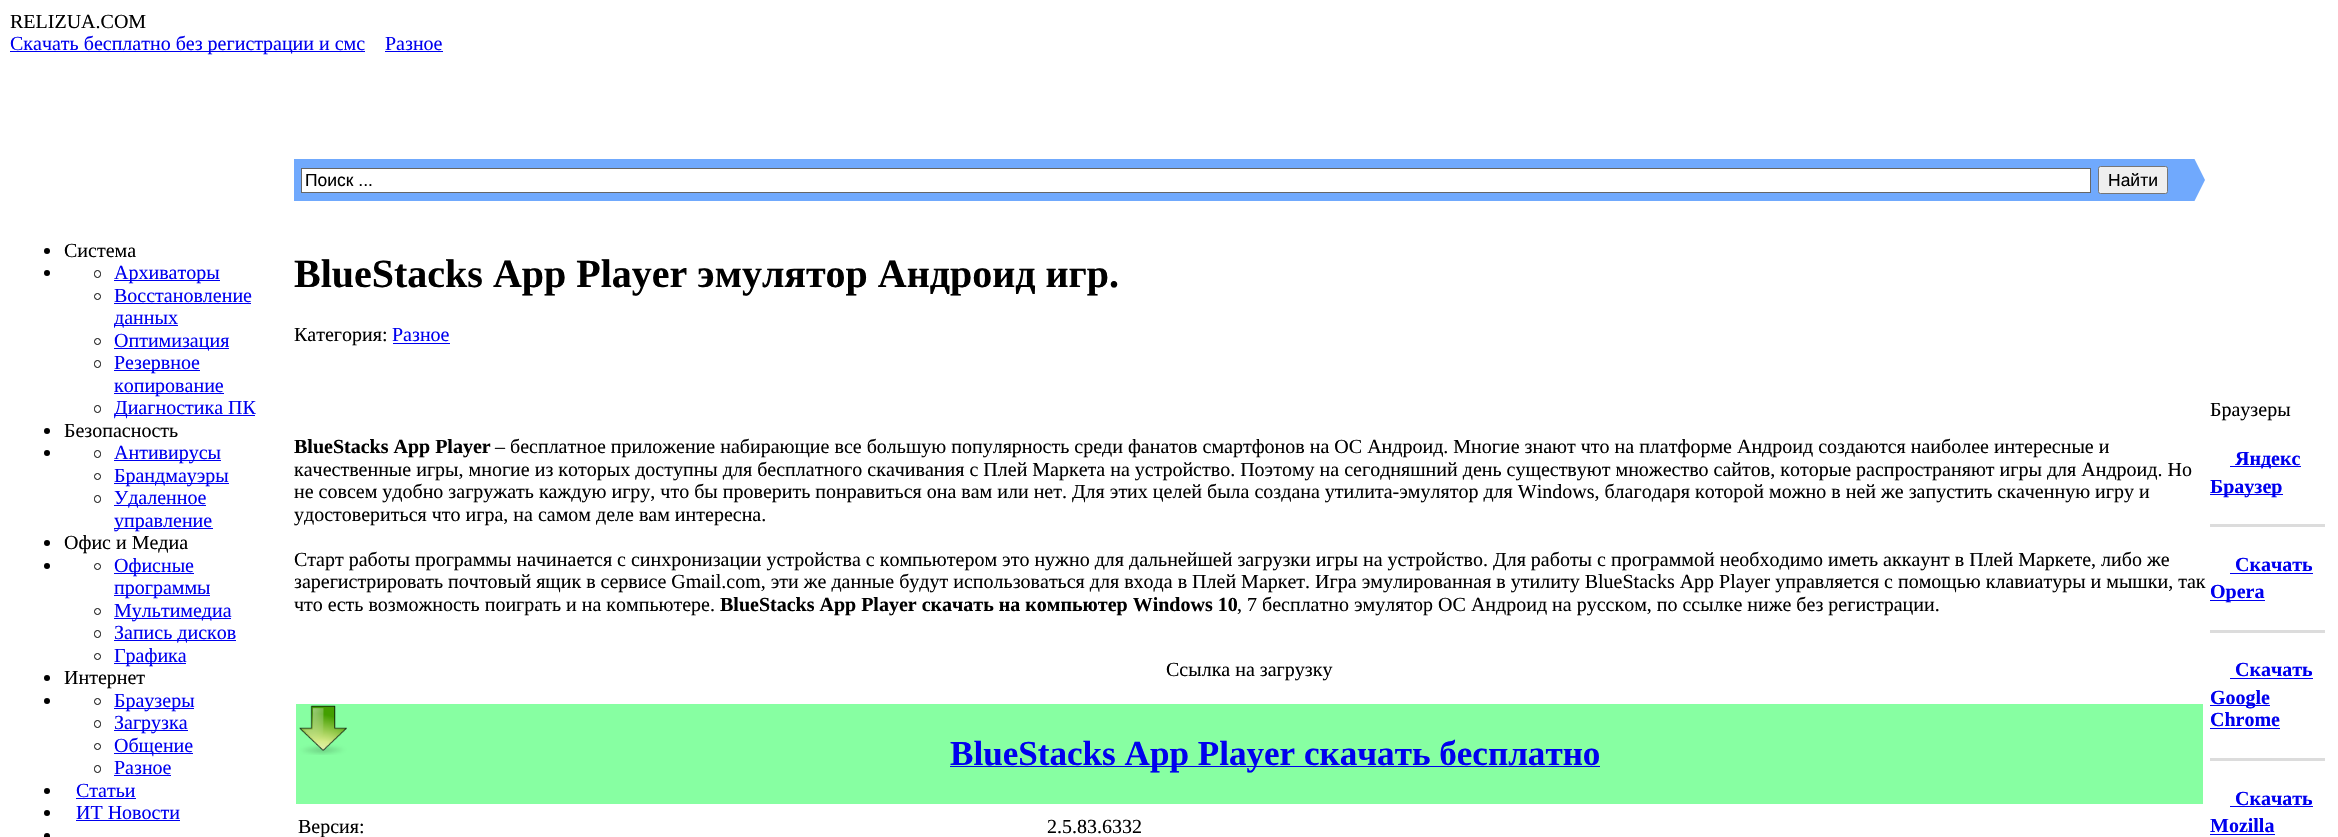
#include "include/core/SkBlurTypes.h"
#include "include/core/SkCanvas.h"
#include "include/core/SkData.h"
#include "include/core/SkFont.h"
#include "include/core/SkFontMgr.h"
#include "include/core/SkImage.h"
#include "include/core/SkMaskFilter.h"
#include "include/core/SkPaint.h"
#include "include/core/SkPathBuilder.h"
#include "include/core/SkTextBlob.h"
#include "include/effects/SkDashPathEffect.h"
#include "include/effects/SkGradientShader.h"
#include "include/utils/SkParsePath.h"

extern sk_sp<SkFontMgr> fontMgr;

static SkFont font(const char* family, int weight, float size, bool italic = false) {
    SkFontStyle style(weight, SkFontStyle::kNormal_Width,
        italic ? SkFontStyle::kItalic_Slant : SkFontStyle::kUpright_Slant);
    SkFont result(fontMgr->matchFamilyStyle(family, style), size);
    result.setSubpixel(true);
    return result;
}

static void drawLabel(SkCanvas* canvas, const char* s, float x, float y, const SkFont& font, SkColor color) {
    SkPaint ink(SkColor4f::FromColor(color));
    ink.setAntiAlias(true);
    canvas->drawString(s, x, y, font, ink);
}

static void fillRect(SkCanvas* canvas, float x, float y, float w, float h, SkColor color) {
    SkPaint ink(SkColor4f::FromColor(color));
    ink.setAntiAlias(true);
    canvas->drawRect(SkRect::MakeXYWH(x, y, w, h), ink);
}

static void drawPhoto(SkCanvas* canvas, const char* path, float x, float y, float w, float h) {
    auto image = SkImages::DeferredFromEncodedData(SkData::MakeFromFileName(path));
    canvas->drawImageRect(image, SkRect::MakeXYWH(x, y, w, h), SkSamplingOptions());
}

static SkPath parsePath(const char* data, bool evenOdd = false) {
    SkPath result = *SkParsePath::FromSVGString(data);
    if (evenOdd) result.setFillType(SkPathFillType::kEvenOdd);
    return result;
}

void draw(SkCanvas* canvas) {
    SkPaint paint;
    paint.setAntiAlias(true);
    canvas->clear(0xFFFFFFFF);
    SkFont font1 = font("Liberation Serif", 400, 20);
    drawLabel(canvas, "RELIZUA.COM", 10, 28, font1, 0xFF000000);
    fillRect(canvas, 10, 51, 355, 1, 0xFF0000EE);
    drawLabel(canvas, "Скачать бесплатно без регистрации и смс", 10, 50, font1, 0xFF0000EE);
    drawLabel(canvas, "Разное", 385, 50, font1, 0xFF0000EE);
    fillRect(canvas, 385, 51, 58, 1, 0xFF0000EE);
    paint.setColor(0xFF000000);
    canvas->drawCircle(47, 251, 3, paint);
    drawLabel(canvas, "Система", 64, 257, font1, 0xFF000000);
    canvas->drawCircle(47, 273, 3, paint);
    paint.setStroke(true);
    paint.setStrokeWidth(1);
    canvas->drawRoundRect(SkRect::MakeXYWH(94.5f, 270.5f, 6, 7), 3, 3, paint);
    fillRect(canvas, 114, 280, 106, 1, 0xFF0000EE);
    drawLabel(canvas, "Архиваторы", 114, 279, font1, 0xFF0000EE);
    canvas->drawCircle(97.5f, 296.5f, 3, paint);
    drawLabel(canvas, "Восстановление", 114, 302, font1, 0xFF0000EE);
    fillRect(canvas, 114, 303, 137, 1, 0xFF0000EE);
    fillRect(canvas, 114, 325, 64, 1, 0xFF0000EE);
    drawLabel(canvas, "данных", 114, 324, font1, 0xFF0000EE);
    canvas->drawCircle(97.5f, 341.5f, 3, paint);
    fillRect(canvas, 114, 348, 115, 1, 0xFF0000EE);
    drawLabel(canvas, "Оптимизация", 114, 347, font1, 0xFF0000EE);
    canvas->drawRoundRect(SkRect::MakeXYWH(94.5f, 360.5f, 6, 7), 3, 3, paint);
    fillRect(canvas, 114, 370, 86, 1, 0xFF0000EE);
    drawLabel(canvas, "Резервное", 114, 369, font1, 0xFF0000EE);
    fillRect(canvas, 114, 393, 110, 1, 0xFF0000EE);
    drawLabel(canvas, "копирование", 114, 392, font1, 0xFF0000EE);
    canvas->drawRoundRect(SkRect::MakeXYWH(94.5f, 405.5f, 6, 7), 3, 3, paint);
    fillRect(canvas, 114, 415, 141, 1, 0xFF0000EE);
    drawLabel(canvas, "Диагностика ПК", 114, 414, font1, 0xFF0000EE);
    paint.setStroke(false);
    canvas->drawCircle(47, 431, 3, paint);
    drawLabel(canvas, "Безопасность", 64, 437, font1, 0xFF000000);
    canvas->drawCircle(47, 453, 3, paint);
    paint.setStroke(true);
    canvas->drawRoundRect(SkRect::MakeXYWH(94.5f, 450.5f, 6, 7), 3, 3, paint);
    fillRect(canvas, 114, 460, 107, 1, 0xFF0000EE);
    drawLabel(canvas, "Антивирусы", 114, 459, font1, 0xFF0000EE);
    canvas->drawCircle(97.5f, 476.5f, 3, paint);
    fillRect(canvas, 114, 483, 115, 1, 0xFF0000EE);
    drawLabel(canvas, "Брандмауэры", 114, 482, font1, 0xFF0000EE);
    canvas->drawRoundRect(SkRect::MakeXYWH(94.5f, 495.5f, 6, 7), 3, 3, paint);
    fillRect(canvas, 114, 505, 92, 1, 0xFF0000EE);
    drawLabel(canvas, "Удаленное", 114, 504, font1, 0xFF0000EE);
    fillRect(canvas, 114, 528, 99, 1, 0xFF0000EE);
    drawLabel(canvas, "управление", 114, 527, font1, 0xFF0000EE);
    paint.setStroke(false);
    canvas->drawCircle(47, 543, 3, paint);
    drawLabel(canvas, "Офис и Медиа", 64, 549, font1, 0xFF000000);
    canvas->drawCircle(47, 566, 3, paint);
    paint.setStroke(true);
    canvas->drawCircle(97.5f, 566.5f, 3, paint);
    fillRect(canvas, 114, 573, 80, 1, 0xFF0000EE);
    drawLabel(canvas, "Офисные", 114, 572, font1, 0xFF0000EE);
    fillRect(canvas, 114, 595, 96, 1, 0xFF0000EE);
    drawLabel(canvas, "программы", 114, 594, font1, 0xFF0000EE);
    canvas->drawCircle(97.5f, 611.5f, 3, paint);
    fillRect(canvas, 114, 618, 117, 1, 0xFF0000EE);
    drawLabel(canvas, "Мультимедиа", 114, 617, font1, 0xFF0000EE);
    canvas->drawRoundRect(SkRect::MakeXYWH(94.5f, 630.5f, 6, 7), 3, 3, paint);
    fillRect(canvas, 114, 640, 122, 1, 0xFF0000EE);
    drawLabel(canvas, "Запись дисков", 114, 639, font1, 0xFF0000EE);
    canvas->drawCircle(97.5f, 656.5f, 3, paint);
    fillRect(canvas, 114, 663, 72, 1, 0xFF0000EE);
    drawLabel(canvas, "Графика", 114, 662, font1, 0xFF0000EE);
    paint.setStroke(false);
    canvas->drawCircle(47, 678, 3, paint);
    drawLabel(canvas, "Интернет", 64, 684, font1, 0xFF000000);
    canvas->drawCircle(47, 701, 3, paint);
    paint.setStroke(true);
    canvas->drawCircle(97.5f, 701.5f, 3, paint);
    fillRect(canvas, 114, 708, 80, 1, 0xFF0000EE);
    drawLabel(canvas, "Браузеры", 114, 707, font1, 0xFF0000EE);
    canvas->drawRoundRect(SkRect::MakeXYWH(94.5f, 720.5f, 6, 7), 3, 3, paint);
    fillRect(canvas, 114, 730, 74, 1, 0xFF0000EE);
    drawLabel(canvas, "Загрузка", 114, 729, font1, 0xFF0000EE);
    canvas->drawCircle(97.5f, 746.5f, 3, paint);
    fillRect(canvas, 114, 753, 79, 1, 0xFF0000EE);
    drawLabel(canvas, "Общение", 114, 752, font1, 0xFF0000EE);
    canvas->drawRoundRect(SkRect::MakeXYWH(94.5f, 765.5f, 6, 7), 3, 3, paint);
    drawLabel(canvas, "Разное", 114, 774, font1, 0xFF0000EE);
    fillRect(canvas, 114, 775, 57, 1, 0xFF0000EE);
    paint.setStroke(false);
    canvas->drawCircle(47, 791, 3, paint);
    drawLabel(canvas, "Статьи", 76, 797, font1, 0xFF0000EE);
    fillRect(canvas, 76, 798, 60, 1, 0xFF0000EE);
    canvas->drawCircle(47, 813, 3, paint);
    drawLabel(canvas, "ИТ Новости", 76, 819, font1, 0xFF0000EE);
    fillRect(canvas, 76, 820, 104, 1, 0xFF0000EE);
    canvas->drawCircle(47, 836, 3, paint);
    fillRect(canvas, 294, 159, 1874, 42, 0xFF70A9FD);
    paint.setColor(0xFFFFFFFF);
    canvas->drawRect(SkRect::MakeXYWH(301.5f, 168.5f, 1789, 24), paint);
    paint.setStroke(true);
    paint.setColor(0xFF666666);
    canvas->drawRect(SkRect::MakeXYWH(301.5f, 168.5f, 1789, 24), paint);
    SkFont font2 = font("Liberation Sans", 400, 17.5f);
    drawLabel(canvas, "Поиск ...", 305, 186, font2, 0xFF000000);
    paint.setStroke(false);
    paint.setColor(0xFFEFEFEF);
    canvas->drawRoundRect(SkRect::MakeXYWH(2098.5f, 166.5f, 69, 27), 2, 2, paint);
    paint.setStroke(true);
    paint.setColor(0xFF767676);
    canvas->drawRoundRect(SkRect::MakeXYWH(2098.5f, 166.5f, 69, 27), 2, 2, paint);
    drawLabel(canvas, "Найти", 2108, 186, font2, 0xFF000000);
    canvas->save();
    canvas->clipRect(SkRect::MakeXYWH(2168, 159, 37, 42));
    paint.setStroke(false);
    paint.setColor(0xFF70A9FD);
    canvas->drawPath(parsePath("M2168 254V106L2205 180Z"), paint);
    canvas->restore();
    SkFont font3 = font("Liberation Serif", 700, 40);
    drawLabel(canvas, "BlueStacks App Player эмулятор Андроид игр.", 294, 287, font3, 0xFF000000);
    drawLabel(canvas, "Категория:", 294, 341, font1, 0xFF000000);
    drawLabel(canvas, "Разное", 392, 341, font1, 0xFF0000EE);
    fillRect(canvas, 393, 343, 57, 1, 0xFF0000EE);
    SkFont font4 = font("Liberation Serif", 700, 20);
    drawLabel(canvas, "BlueStacks App Player", 294, 453, font4, 0xFF000000);
    drawLabel(canvas, "– бесплатное приложение набирающие все большую популярность среди фанатов смартфонов на ОС Андроид. Многие знают что на платформе Андроид создаются наиболее интересные и", 495, 453, font1, 0xFF000000);
    drawLabel(canvas, "качественные игры, многие из которых доступны для бесплатного скачивания с Плей Маркета на устройство. Поэтому на сегодняшний день существуют множество сайтов, которые распространяют игры для Андроид. Но", 294, 476, font1, 0xFF000000);
    drawLabel(canvas, "не совсем удобно загружать каждую игру, что бы проверить понравиться она вам или нет. Для этих целей была создана утилита-эмулятор для Windows, благодаря которой можно в ней же запустить скаченную игру и", 294, 498, font1, 0xFF000000);
    drawLabel(canvas, "удостовериться что игра, на самом деле вам интересна.", 294, 521, font1, 0xFF000000);
    drawLabel(canvas, "Старт работы программы начинается с синхронизации устройства с компьютером это нужно для дальнейшей загрузки игры на устройство. Для работы с программой необходимо иметь аккаунт в Плей Маркете, либо же", 294, 566, font1, 0xFF000000);
    drawLabel(canvas, "зарегистрировать почтовый ящик в сервисе Gmail.com, эти же данные будут использоваться для входа в Плей Маркет. Игра эмулированная в утилиту BlueStacks App Player управляется с помощью клавиатуры и мышки, так", 294, 588, font1, 0xFF000000);
    drawLabel(canvas, "что есть возможность поиграть и на компьютере.", 294, 611, font1, 0xFF000000);
    drawLabel(canvas, "BlueStacks App Player скачать на компьютер Windows 10", 720, 611, font4, 0xFF000000);
    drawLabel(canvas, ", 7 бесплатно эмулятор ОС Андроид на русском, по ссылке ниже без регистрации.", 1237, 611, font1, 0xFF000000);
    drawLabel(canvas, "Ссылка на загрузку", 1166, 676, font1, 0xFF000000);
    fillRect(canvas, 296, 704, 1907, 100, 0xFF87FFA2);
    drawPhoto(canvas, "assets/img1.png", 299, 705, 48, 50);
    fillRect(canvas, 950, 766, 650, 1, 0xFF0000EE);
    SkFont font5 = font("Liberation Serif", 700, 35.1f);
    drawLabel(canvas, "BlueStacks App Player скачать бесплатно", 950, 765, font5, 0xFF0000EE);
    drawLabel(canvas, "Версия:", 298, 833, font1, 0xFF000000);
    drawLabel(canvas, "2.5.83.6332", 1047, 833, font1, 0xFF000000);
    drawLabel(canvas, "Браузеры", 2210, 416, font1, 0xFF000000);
    fillRect(canvas, 2230, 466, 71, 1, 0xFF0000EE);
    drawLabel(canvas, "Яндекс", 2235, 465, font4, 0xFF0000EE);
    fillRect(canvas, 2210, 494, 73, 1, 0xFF0000EE);
    drawLabel(canvas, "Браузер", 2210, 493, font4, 0xFF0000EE);
    fillRect(canvas, 2210, 524, 115, 3, 0xFFDCDCDC);
    drawLabel(canvas, "Скачать", 2235, 571, font4, 0xFF0000EE);
    fillRect(canvas, 2230, 573, 83, 1, 0xFF0000EE);
    fillRect(canvas, 2210, 600, 55, 1, 0xFF0000EE);
    drawLabel(canvas, "Opera", 2210, 598, font4, 0xFF0000EE);
    fillRect(canvas, 2210, 630, 115, 3, 0xFFDCDCDC);
    drawLabel(canvas, "Скачать", 2235, 676, font4, 0xFF0000EE);
    fillRect(canvas, 2230, 678, 83, 1, 0xFF0000EE);
    fillRect(canvas, 2210, 705, 60, 1, 0xFF0000EE);
    drawLabel(canvas, "Google", 2210, 704, font4, 0xFF0000EE);
    drawLabel(canvas, "Chrome", 2210, 726, font4, 0xFF0000EE);
    fillRect(canvas, 2210, 728, 70, 1, 0xFF0000EE);
    fillRect(canvas, 2210, 758, 115, 3, 0xFFDCDCDC);
    drawLabel(canvas, "Скачать", 2235, 805, font4, 0xFF0000EE);
    fillRect(canvas, 2230, 806, 83, 1, 0xFF0000EE);
    drawLabel(canvas, "Mozilla", 2210, 832, font4, 0xFF0000EE);
    fillRect(canvas, 2210, 834, 65, 1, 0xFF0000EE);
}
